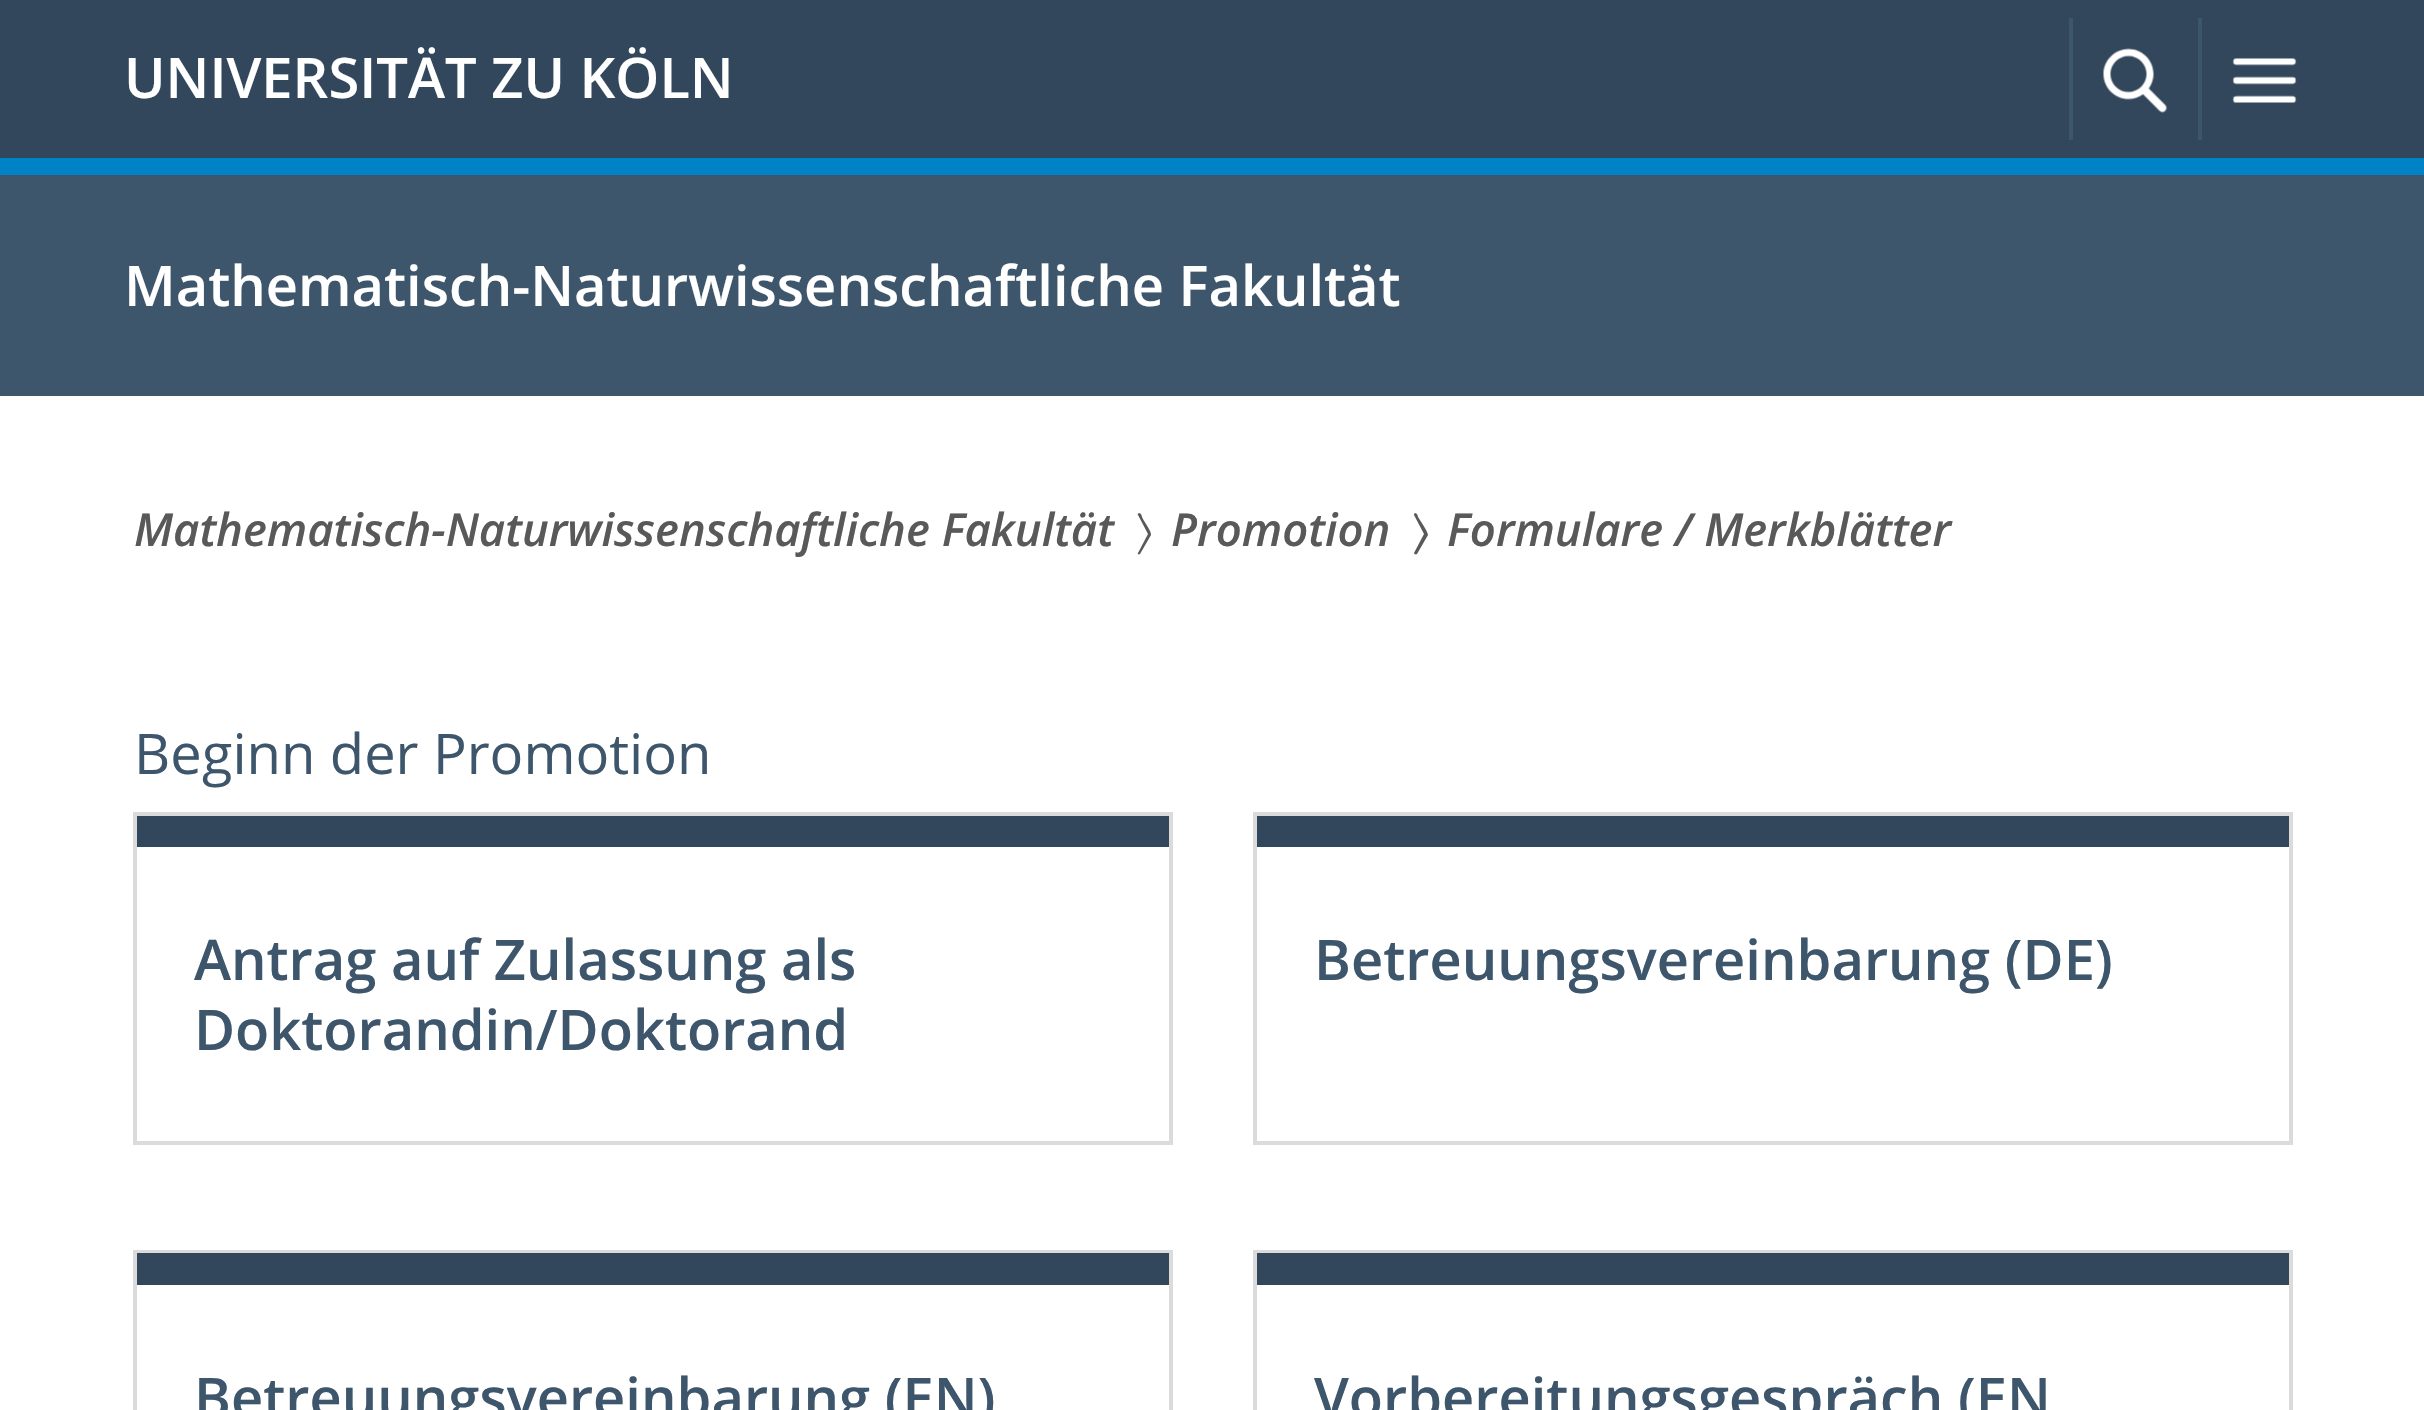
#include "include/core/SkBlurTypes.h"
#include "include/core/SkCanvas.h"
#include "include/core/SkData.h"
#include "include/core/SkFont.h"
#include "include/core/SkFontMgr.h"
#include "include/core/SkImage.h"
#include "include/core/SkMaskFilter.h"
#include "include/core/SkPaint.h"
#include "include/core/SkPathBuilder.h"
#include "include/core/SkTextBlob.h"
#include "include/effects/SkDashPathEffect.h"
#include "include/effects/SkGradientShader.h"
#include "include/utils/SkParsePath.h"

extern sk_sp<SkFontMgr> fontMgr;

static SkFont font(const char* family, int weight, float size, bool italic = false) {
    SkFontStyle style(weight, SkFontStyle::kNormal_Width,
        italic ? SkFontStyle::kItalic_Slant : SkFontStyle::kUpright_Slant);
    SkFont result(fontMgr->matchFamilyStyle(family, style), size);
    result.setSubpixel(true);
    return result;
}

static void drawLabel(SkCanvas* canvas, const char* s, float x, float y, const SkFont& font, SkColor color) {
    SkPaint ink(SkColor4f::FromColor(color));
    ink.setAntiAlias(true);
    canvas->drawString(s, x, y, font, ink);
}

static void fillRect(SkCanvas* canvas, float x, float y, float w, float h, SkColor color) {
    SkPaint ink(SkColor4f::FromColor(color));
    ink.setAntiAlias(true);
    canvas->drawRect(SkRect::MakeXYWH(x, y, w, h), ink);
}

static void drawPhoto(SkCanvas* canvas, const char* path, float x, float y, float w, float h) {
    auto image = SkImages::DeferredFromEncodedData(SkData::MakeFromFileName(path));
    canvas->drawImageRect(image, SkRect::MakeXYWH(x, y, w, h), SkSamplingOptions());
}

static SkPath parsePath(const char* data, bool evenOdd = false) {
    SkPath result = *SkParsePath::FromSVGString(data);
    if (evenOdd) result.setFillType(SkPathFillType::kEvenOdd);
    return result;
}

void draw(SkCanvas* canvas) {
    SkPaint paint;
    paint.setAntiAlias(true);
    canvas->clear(0xFFFFFFFF);
    fillRect(canvas, 0, 175, 2424, 221, 0xFF3E566C);
    fillRect(canvas, 0, 0, 2424, 158, 0xFF32475B);
    fillRect(canvas, 0, 158, 2424, 17, 0xFF0082C6);
    SkFont font1 = font("Open Sans", 600, 56);
    drawLabel(canvas, "UNIVERSITÄT ZU KÖLN", 124, 98, font1, 0xFFFFFFFF);
    fillRect(canvas, 2069, 18, 4, 122, 0xFF3E566C);
    drawPhoto(canvas, "assets/img1.png", 2103, 48, 64, 65);
    fillRect(canvas, 2198, 18, 4, 122, 0xFF3E566C);
    drawPhoto(canvas, "assets/img2.png", 2232, 58, 65, 45);
    drawLabel(canvas, "Mathematisch-Naturwissenschaftliche Fakultät", 124, 306, font1, 0xFFFFFFFF);
    SkFont font2 = font("Open Sans", 600, 45.5f, true);
    drawLabel(canvas, "Mathematisch-Naturwissenschaftliche Fakultät", 134, 546, font2, 0xFF595959);
    paint.setColor(0xFF595959);
    canvas->drawPath(parsePath("M1148 534L1138 553C1137 554 1139 555 1140 554L1151 535C1152 532 1143 520 1142 517C1142 516 1141 513 1139 513C1138 514 1137 514 1138 515Z"), paint);
    drawLabel(canvas, "Promotion", 1171, 546, font2, 0xFF595959);
    canvas->drawPath(parsePath("M1424 534L1414 553C1414 554 1416 555 1417 554L1428 535C1428 532 1420 520 1418 517C1418 516 1417 513 1415 513C1414 514 1414 514 1414 515Z"), paint);
    drawLabel(canvas, "Formulare / Merkblätter", 1447, 546, font2, 0xFF595959);
    SkFont font3 = font("Open Sans", 400, 56);
    drawLabel(canvas, "Beginn der Promotion", 134, 774, font3, 0xFF3E566C);
    paint.setStroke(true);
    paint.setStrokeWidth(4);
    paint.setColor(0xFFDBDBDB);
    canvas->drawRect(SkRect::MakeXYWH(135, 814, 1036, 329), paint);
    fillRect(canvas, 137, 816, 1032, 31, 0xFF32475B);
    drawLabel(canvas, "Antrag auf Zulassung als", 194, 980, font1, 0xFF3E566C);
    drawLabel(canvas, "Doktorandin/Doktorand", 194, 1050, font1, 0xFF3E566C);
    canvas->drawRect(SkRect::MakeXYWH(1255, 814, 1036, 329), paint);
    fillRect(canvas, 1257, 816, 1032, 31, 0xFF32475B);
    drawLabel(canvas, "Betreuungsvereinbarung (DE)", 1314, 980, font1, 0xFF3E566C);
    canvas->drawRect(SkRect::MakeXYWH(135, 1252, 1036, 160), paint);
    fillRect(canvas, 137, 1253, 1032, 32, 0xFF32475B);
    drawLabel(canvas, "Betreuungsvereinbarung (EN)", 194, 1418, font1, 0xFF3E566C);
    canvas->drawRect(SkRect::MakeXYWH(1255, 1252, 1036, 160), paint);
    fillRect(canvas, 1257, 1253, 1032, 32, 0xFF32475B);
    drawLabel(canvas, "Vorbereitungsgespräch (EN", 1314, 1418, font1, 0xFF3E566C);
}
